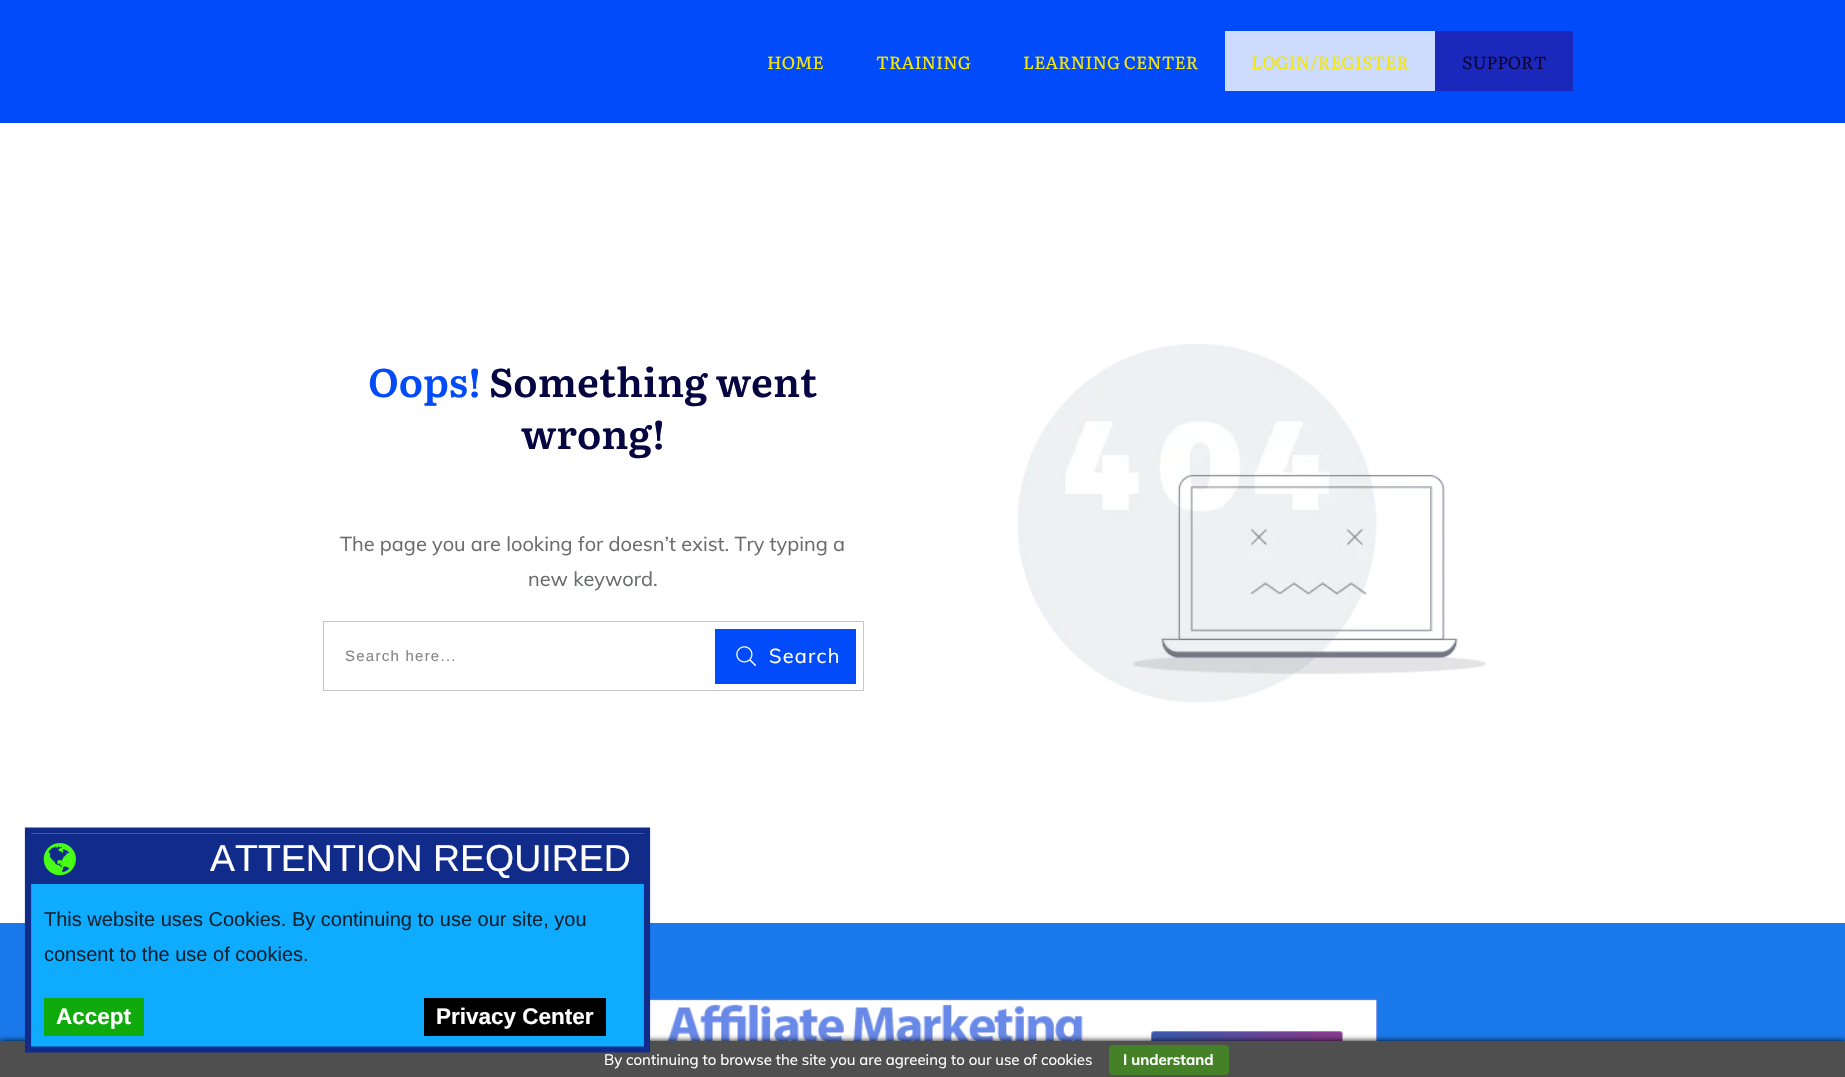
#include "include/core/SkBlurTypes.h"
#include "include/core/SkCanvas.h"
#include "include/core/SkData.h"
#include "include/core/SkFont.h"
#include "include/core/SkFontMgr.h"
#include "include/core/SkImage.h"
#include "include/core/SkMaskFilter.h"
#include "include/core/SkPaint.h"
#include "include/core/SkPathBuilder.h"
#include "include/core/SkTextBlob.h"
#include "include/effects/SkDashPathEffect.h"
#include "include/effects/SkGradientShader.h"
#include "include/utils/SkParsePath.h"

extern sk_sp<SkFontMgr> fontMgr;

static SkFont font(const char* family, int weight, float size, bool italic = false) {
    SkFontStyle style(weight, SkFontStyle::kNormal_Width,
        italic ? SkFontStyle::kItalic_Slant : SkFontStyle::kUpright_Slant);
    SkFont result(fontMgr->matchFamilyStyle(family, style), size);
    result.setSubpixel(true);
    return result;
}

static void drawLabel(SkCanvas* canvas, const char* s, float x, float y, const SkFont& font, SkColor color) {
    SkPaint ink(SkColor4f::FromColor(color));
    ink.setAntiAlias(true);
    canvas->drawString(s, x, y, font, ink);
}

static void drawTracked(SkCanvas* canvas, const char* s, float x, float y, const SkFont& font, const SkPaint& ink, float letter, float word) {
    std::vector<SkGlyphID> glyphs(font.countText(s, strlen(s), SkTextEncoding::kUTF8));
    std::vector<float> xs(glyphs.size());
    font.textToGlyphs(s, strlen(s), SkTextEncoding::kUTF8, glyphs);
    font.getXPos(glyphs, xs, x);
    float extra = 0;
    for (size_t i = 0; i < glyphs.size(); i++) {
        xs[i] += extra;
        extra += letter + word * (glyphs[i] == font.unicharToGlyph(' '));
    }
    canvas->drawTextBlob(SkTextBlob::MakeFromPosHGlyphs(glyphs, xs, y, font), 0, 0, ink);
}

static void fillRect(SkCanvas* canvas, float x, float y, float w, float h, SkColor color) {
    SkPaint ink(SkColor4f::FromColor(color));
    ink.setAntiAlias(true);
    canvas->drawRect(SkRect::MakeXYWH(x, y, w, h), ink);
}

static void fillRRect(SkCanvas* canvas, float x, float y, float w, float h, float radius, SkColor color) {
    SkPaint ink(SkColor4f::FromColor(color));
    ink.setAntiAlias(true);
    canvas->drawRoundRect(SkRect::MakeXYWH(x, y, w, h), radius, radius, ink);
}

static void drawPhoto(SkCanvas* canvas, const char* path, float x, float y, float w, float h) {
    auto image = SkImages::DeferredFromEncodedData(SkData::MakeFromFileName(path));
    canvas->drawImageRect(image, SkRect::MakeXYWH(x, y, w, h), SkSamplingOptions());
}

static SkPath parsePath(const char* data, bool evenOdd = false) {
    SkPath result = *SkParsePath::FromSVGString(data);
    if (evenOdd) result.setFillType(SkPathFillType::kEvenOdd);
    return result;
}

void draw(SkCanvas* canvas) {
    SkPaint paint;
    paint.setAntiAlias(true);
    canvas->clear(0xFFFFFFFF);
    fillRect(canvas, 0, 0, 1845, 123, 0xFF024BFA);
    SkFont font1 = font("Literata", 400, 17.5f);
    drawLabel(canvas, "HOME", 767, 69, font1, 0xFFF5E70A);
    drawLabel(canvas, "TRAINING", 876, 69, font1, 0xFFF5E70A);
    drawLabel(canvas, "LEARNING CENTER", 1023, 69, font1, 0xFFF5E70A);
    fillRect(canvas, 1225, 31, 210, 60, 0xFFCCDBFE);
    drawLabel(canvas, "LOGIN/REGISTER", 1251, 69, font1, 0xFFF5E70A);
    fillRect(canvas, 1435, 31, 138, 60, 0xFF1A28BB);
    drawLabel(canvas, "SUPPORT", 1462, 69, font1, 0xFF0E0439);
    SkFont font2 = font("Literata", 600, 40);
    drawLabel(canvas, "Oops!", 368, 397, font2, 0xFF024BFA);
    drawLabel(canvas, "Something went", 489, 397, font2, 0xFF050541);
    drawLabel(canvas, "wrong!", 521, 449, font2, 0xFF050541);
    SkFont font3 = font("Muli", 400, 20);
    drawLabel(canvas, "The page you are looking for doesn’t exist. Try typing a", 340, 551, font3, 0xFF6A6B6C);
    drawLabel(canvas, "new keyword.", 528, 586, font3, 0xFF6A6B6C);
    paint.setStroke(true);
    paint.setStrokeWidth(1);
    paint.setColor(0xFFC7C7C7);
    canvas->drawRect(SkRect::MakeXYWH(323.5f, 621.5f, 540, 69), paint);
    SkFont font4 = font("Liberation Sans", 400, 15);
    paint.setStroke(false);
    paint.setColor(0xFF858585);
    drawTracked(canvas, "Search here...", 345, 661, font4, paint, 1.25f, 0);
    fillRect(canvas, 715, 629, 141, 55, 0xFF024BFA);
    drawPhoto(canvas, "assets/img1.png", 736, 646, 20, 20);
    paint.setColor(0xFFFFFFFF);
    drawTracked(canvas, "Search", 769, 663, font3, paint, 1.25f, 0);
    drawPhoto(canvas, "assets/img2.png", 1017, 344, 469, 359);
    fillRect(canvas, 0, 923, 1845, 118, 0xFF1A79EB);
    drawPhoto(canvas, "assets/img3.png", 650, 998, 728, 43);
    paint.setColor(0xFF000000);
    paint.setMaskFilter(SkMaskFilter::MakeBlur(kNormal_SkBlurStyle, 3));
    canvas->drawRect(SkRect::MakeXYWH(0, 1041, 1845, 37), paint);
    paint.setMaskFilter(nullptr);
    fillRect(canvas, 0, 1041, 1845, 36, 0xFF4F4F4F);
    paint.setColor(0xFF0FABFF);
    canvas->drawPath(parsePath("M31 828H644C647 828 650 829 650 830V1050C650 1051 647 1052 644 1052H31C28 1052 25 1051 25 1050V830C25 829 28 828 31 828Z"), paint);
    paint.setStroke(true);
    paint.setStrokeWidth(6.2f);
    paint.setColor(0xFF112B8A);
    canvas->drawPath(parsePath("M31 830.5H647V1049.5H28V830.5Z"), paint);
    fillRect(canvas, 31, 834, 613, 50, 0xFF112B8A);
    drawPhoto(canvas, "assets/img4.png", 43, 843, 33, 33);
    SkFont font5 = font("Liberation Sans", 400, 37.5f);
    drawLabel(canvas, "ATTENTION REQUIRED", 210, 871, font5, 0xFFFFFFFF);
    SkFont font6 = font("Liberation Sans", 400, 20);
    drawLabel(canvas, "This website uses Cookies. By continuing to use our site, you", 44, 926, font6, 0xFF0B222F);
    drawLabel(canvas, "consent to the use of cookies.", 44, 961, font6, 0xFF0B222F);
    fillRect(canvas, 44, 998, 100, 38, 0xFF0FAB0C);
    SkFont font7 = font("Liberation Sans", 700, 22.5f);
    drawLabel(canvas, "Accept", 56, 1024, font7, 0xFFFFFFFF);
    fillRect(canvas, 424, 998, 182, 38, 0xFF000000);
    drawLabel(canvas, "Privacy Center", 436, 1024, font7, 0xFFFFFFFF);
    SkFont font8 = font("Muli", 400, 15);
    drawLabel(canvas, "By continuing to browse the site you are agreeing to our use of cookies", 604, 1065, font8, 0xFFFFFFFF);
    fillRRect(canvas, 1109, 1045, 120, 30, 4, 0xFF458227);
    SkFont font9 = font("Muli", 700, 15);
    drawLabel(canvas, "I understand", 1123, 1065, font9, 0xFFFFFFFF);
}
